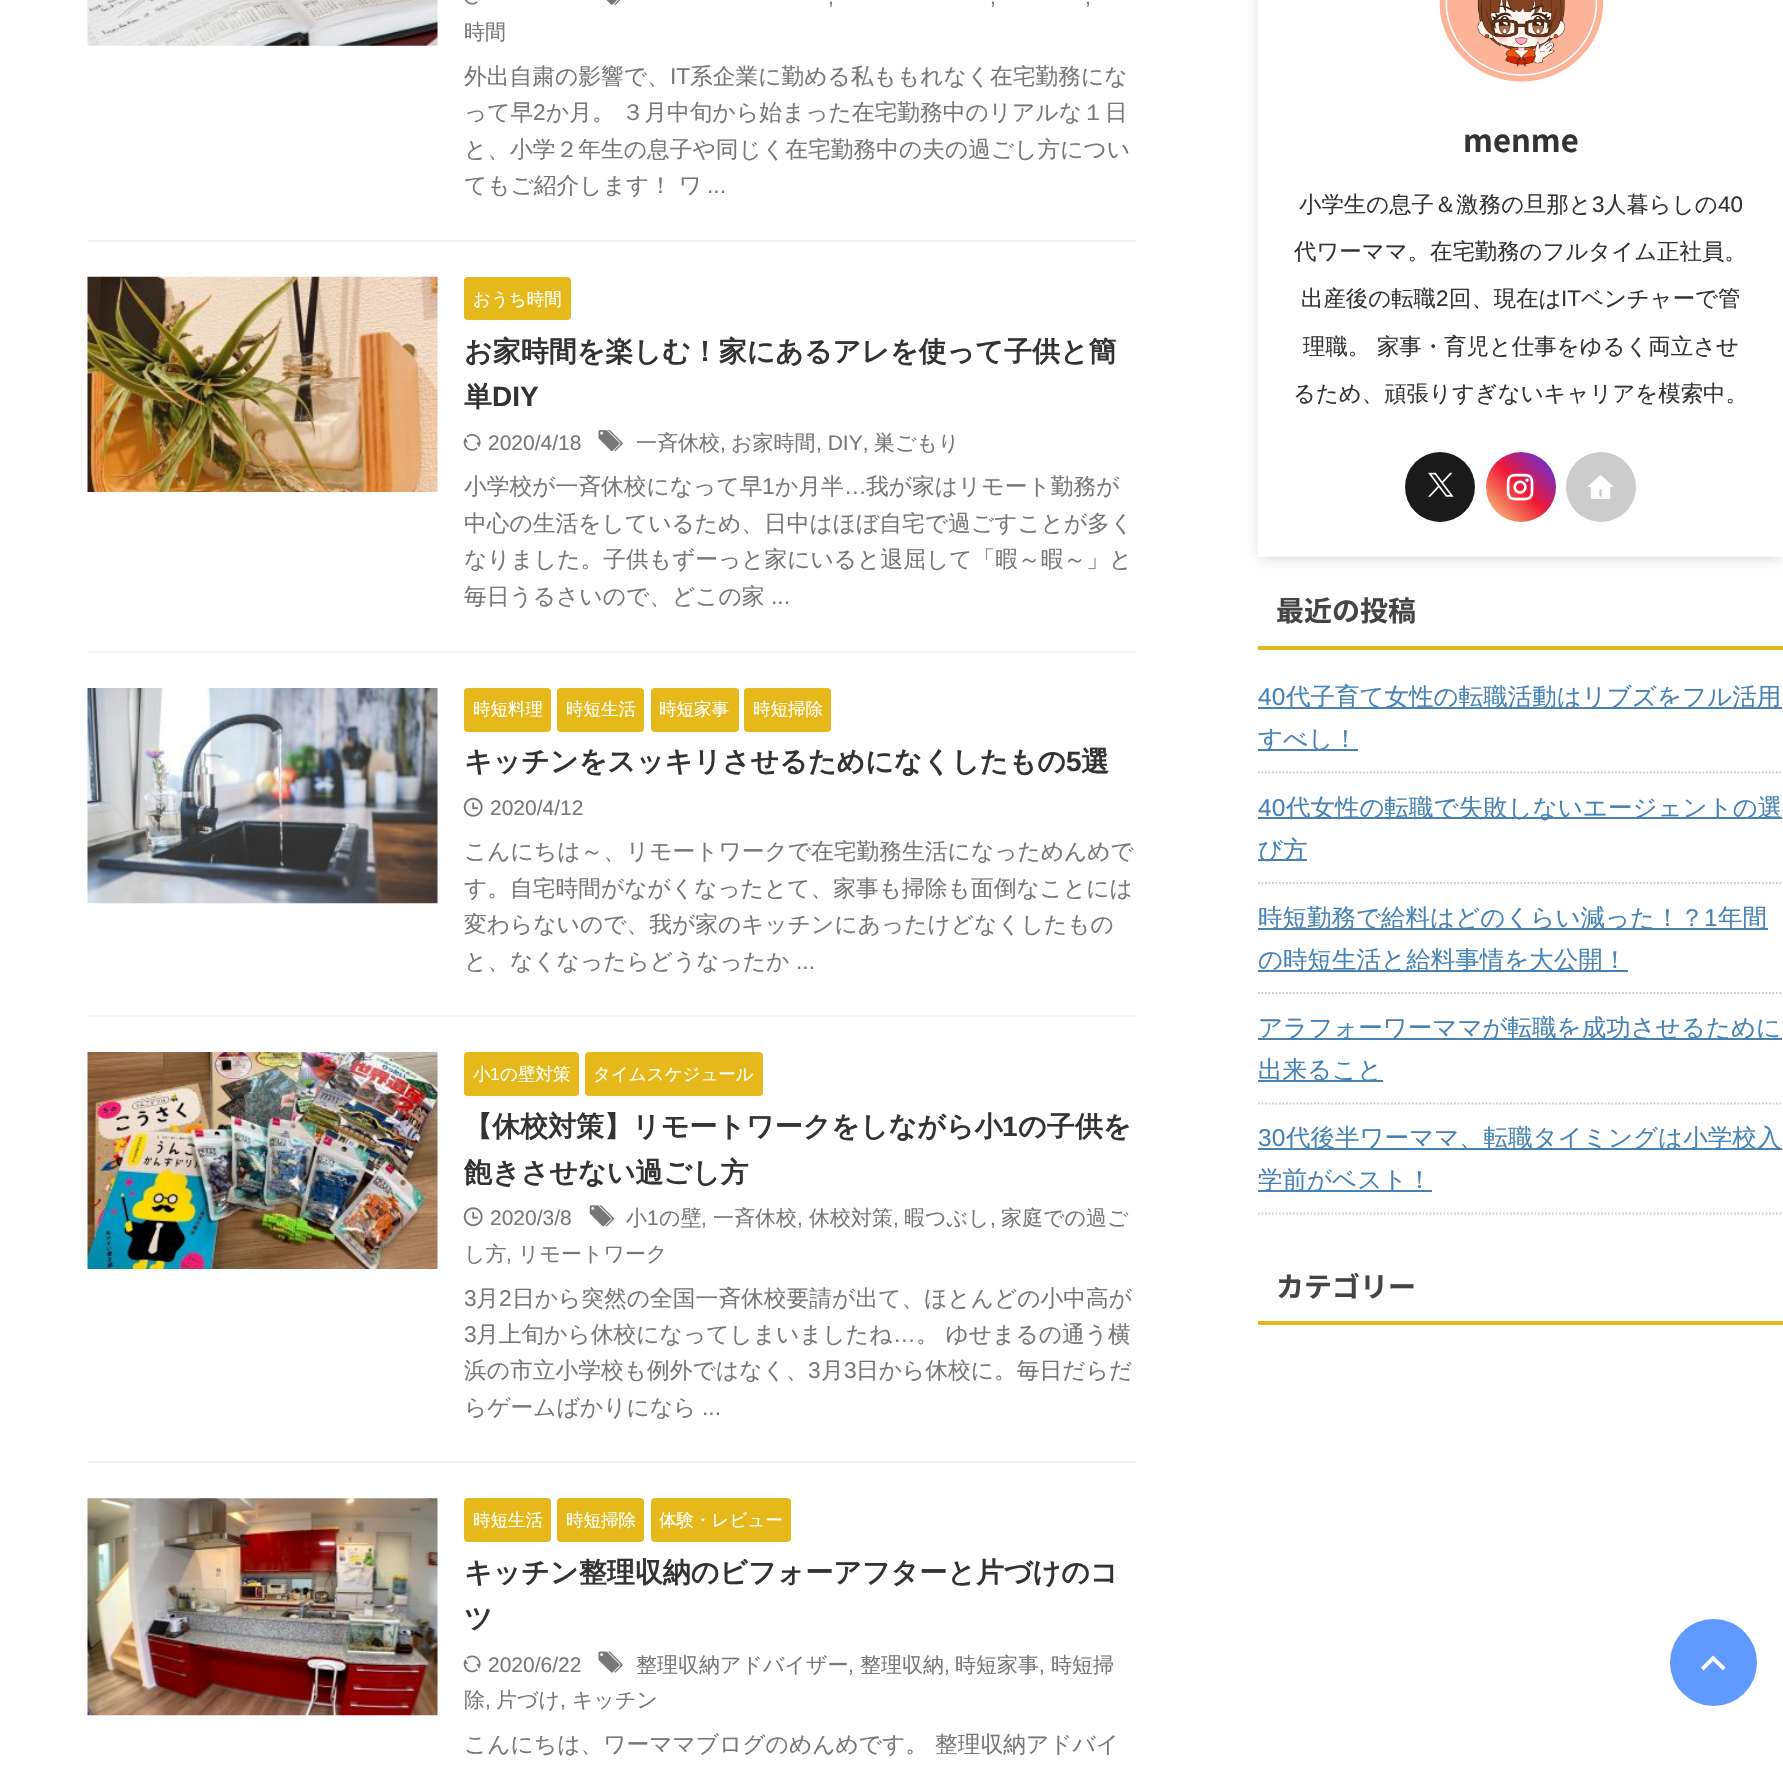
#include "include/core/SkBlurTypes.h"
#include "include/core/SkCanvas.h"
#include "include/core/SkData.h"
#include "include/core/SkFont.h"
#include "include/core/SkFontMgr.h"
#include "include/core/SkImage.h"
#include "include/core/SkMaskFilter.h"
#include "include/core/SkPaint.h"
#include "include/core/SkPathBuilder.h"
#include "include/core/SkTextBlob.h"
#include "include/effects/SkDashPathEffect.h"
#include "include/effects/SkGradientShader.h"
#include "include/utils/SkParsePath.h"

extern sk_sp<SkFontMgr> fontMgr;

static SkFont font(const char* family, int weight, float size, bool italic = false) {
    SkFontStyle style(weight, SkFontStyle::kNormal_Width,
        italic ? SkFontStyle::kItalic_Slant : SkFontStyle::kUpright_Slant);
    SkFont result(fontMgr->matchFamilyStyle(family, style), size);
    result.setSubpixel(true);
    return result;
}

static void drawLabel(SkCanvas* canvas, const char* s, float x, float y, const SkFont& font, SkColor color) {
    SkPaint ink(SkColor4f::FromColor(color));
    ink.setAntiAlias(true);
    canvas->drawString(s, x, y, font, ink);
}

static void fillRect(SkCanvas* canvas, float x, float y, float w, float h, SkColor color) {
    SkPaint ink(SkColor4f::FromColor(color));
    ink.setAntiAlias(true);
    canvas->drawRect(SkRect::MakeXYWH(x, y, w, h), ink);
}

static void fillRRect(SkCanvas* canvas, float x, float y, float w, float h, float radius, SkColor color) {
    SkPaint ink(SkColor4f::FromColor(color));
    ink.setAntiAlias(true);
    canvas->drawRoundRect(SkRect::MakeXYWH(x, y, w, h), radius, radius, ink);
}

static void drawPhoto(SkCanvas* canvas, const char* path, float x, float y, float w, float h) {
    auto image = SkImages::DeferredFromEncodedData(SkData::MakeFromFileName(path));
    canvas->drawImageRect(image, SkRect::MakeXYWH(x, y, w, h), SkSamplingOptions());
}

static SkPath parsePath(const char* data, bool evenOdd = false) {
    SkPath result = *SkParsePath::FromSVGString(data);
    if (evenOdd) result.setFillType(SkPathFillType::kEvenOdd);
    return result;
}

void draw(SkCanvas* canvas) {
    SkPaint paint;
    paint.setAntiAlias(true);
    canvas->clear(0xFFFFFFFF);
    fillRect(canvas, 88, 240, 1048, 2, 0xFFF3F3F3);
    drawPhoto(canvas, "assets/img1.png", 87, 0, 351, 46);
    drawPhoto(canvas, "assets/img2.png", 464, 0, 16, 5);
    drawPhoto(canvas, "assets/img3.png", 606, 0, 15, 5);
    SkFont font1 = font("Liberation Sans", 400, 21);
    drawLabel(canvas, ",", 828, 4, font1, 0xFF777777);
    drawLabel(canvas, ",", 990, 4, font1, 0xFF777777);
    drawLabel(canvas, ",", 1085, 4, font1, 0xFF777777);
    SkFont font2 = font("WenQuanYi Zen Hei", 500, 21);
    drawLabel(canvas, "時間", 464, 39, font2, 0xFF777777);
    SkFont font3 = font("WenQuanYi Zen Hei", 500, 22.75f);
    drawLabel(canvas, "外出自粛の影響で、", 464, 84, font3, 0xFF777777);
    SkFont font4 = font("Liberation Sans", 400, 22.75f);
    drawLabel(canvas, "IT", 670, 84, font4, 0xFF777777);
    drawLabel(canvas, "系企業に勤める私ももれなく在宅勤務にな", 690, 84, font3, 0xFF777777);
    drawLabel(canvas, "って早", 464, 120, font3, 0xFF777777);
    drawLabel(canvas, "2", 533, 120, font4, 0xFF777777);
    drawLabel(canvas, "か月。 ３月中旬から始まった在宅勤務中のリアルな１日", 546, 120, font3, 0xFF777777);
    drawLabel(canvas, "と、小学２年生の息子や同じく在宅勤務中の夫の過ごし方につい", 464, 157, font3, 0xFF777777);
    drawLabel(canvas, "てもご紹介します！ ワ", 464, 193, font3, 0xFF777777);
    drawLabel(canvas, "...", 707, 193, font4, 0xFF777777);
    fillRect(canvas, 88, 651, 1048, 2, 0xFFF3F3F3);
    drawPhoto(canvas, "assets/img4.png", 87, 276, 351, 216);
    fillRRect(canvas, 464, 277, 107, 43, 4, 0xFFE5B91B);
    SkFont font5 = font("WenQuanYi Zen Hei", 500, 17.5f);
    drawLabel(canvas, "おうち時間", 473, 305, font5, 0xFFFFFFFF);
    SkFont font6 = font("WenQuanYi Zen Hei", 700, 28);
    drawLabel(canvas, "お家時間を楽しむ！家にあるアレを使って子供と簡", 464, 361, font6, 0xFF333333);
    drawLabel(canvas, "単", 464, 406, font6, 0xFF333333);
    SkFont font7 = font("Liberation Sans", 700, 28);
    drawLabel(canvas, "DIY", 492, 406, font7, 0xFF333333);
    drawPhoto(canvas, "assets/img5.png", 463, 434, 18, 17);
    drawLabel(canvas, "2020/4/18", 488, 450, font1, 0xFF777777);
    drawPhoto(canvas, "assets/img6.png", 598, 430, 25, 21);
    drawLabel(canvas, "一斉休校", 636, 450, font2, 0xFF777777);
    drawLabel(canvas, ",", 720, 450, font1, 0xFF777777);
    drawLabel(canvas, "お家時間", 731, 450, font2, 0xFF777777);
    drawLabel(canvas, ", DIY,", 816, 450, font1, 0xFF777777);
    drawLabel(canvas, "巣ごもり", 874, 450, font2, 0xFF777777);
    drawLabel(canvas, "小学校が一斉休校になって早", 464, 494, font3, 0xFF777777);
    drawLabel(canvas, "1", 762, 494, font4, 0xFF777777);
    drawLabel(canvas, "か月半", 775, 494, font3, 0xFF777777);
    drawLabel(canvas, "…", 844, 494, font4, 0xFF777777);
    drawLabel(canvas, "我が家はリモート勤務が", 866, 494, font3, 0xFF777777);
    drawLabel(canvas, "中心の生活をしているため、日中はほぼ自宅で過ごすことが多く", 464, 531, font3, 0xFF777777);
    drawLabel(canvas, "なりました。子供もずーっと家にいると退屈して「暇～暇～」と", 464, 567, font3, 0xFF777777);
    drawLabel(canvas, "毎日うるさいので、どこの家", 464, 604, font3, 0xFF777777);
    drawLabel(canvas, "...", 771, 604, font4, 0xFF777777);
    fillRect(canvas, 88, 1015, 1048, 2, 0xFFF3F3F3);
    drawPhoto(canvas, "assets/img7.png", 87, 688, 351, 216);
    fillRRect(canvas, 464, 688, 87, 44, 4, 0xFFE5B91B);
    drawLabel(canvas, "時短料理", 473, 715, font5, 0xFFFFFFFF);
    fillRRect(canvas, 557, 688, 87, 44, 4, 0xFFE5B91B);
    drawLabel(canvas, "時短生活", 566, 715, font5, 0xFFFFFFFF);
    fillRRect(canvas, 651, 688, 88, 44, 4, 0xFFE5B91B);
    drawLabel(canvas, "時短家事", 659, 715, font5, 0xFFFFFFFF);
    fillRRect(canvas, 744, 688, 87, 44, 4, 0xFFE5B91B);
    drawLabel(canvas, "時短掃除", 753, 715, font5, 0xFFFFFFFF);
    drawLabel(canvas, "キッチンをスッキリさせるためになくしたもの", 464, 771, font6, 0xFF333333);
    drawLabel(canvas, "5", 1066, 771, font7, 0xFF333333);
    drawLabel(canvas, "選", 1081, 771, font6, 0xFF333333);
    drawPhoto(canvas, "assets/img8.png", 463, 797, 20, 20);
    drawLabel(canvas, "2020/4/12", 490, 815, font1, 0xFF777777);
    drawLabel(canvas, "こんにちは～、リモートワークで在宅勤務生活になっためんめで", 464, 859, font3, 0xFF777777);
    drawLabel(canvas, "す。自宅時間がながくなったとて、家事も掃除も面倒なことには", 464, 896, font3, 0xFF777777);
    drawLabel(canvas, "変わらないので、我が家のキッチンにあったけどなくしたもの", 464, 932, font3, 0xFF777777);
    drawLabel(canvas, "と、なくなったらどうなったか", 464, 969, font3, 0xFF777777);
    drawLabel(canvas, "...", 796, 969, font4, 0xFF777777);
    fillRect(canvas, 88, 1461, 1048, 2, 0xFFF3F3F3);
    drawPhoto(canvas, "assets/img9.png", 87, 1052, 351, 217);
    fillRRect(canvas, 464, 1052, 115, 44, 4, 0xFFE5B91B);
    drawLabel(canvas, "小", 473, 1080, font5, 0xFFFFFFFF);
    SkFont font8 = font("Liberation Sans", 400, 17.5f);
    drawLabel(canvas, "1", 490, 1080, font8, 0xFFFFFFFF);
    drawLabel(canvas, "の壁対策", 500, 1080, font5, 0xFFFFFFFF);
    fillRRect(canvas, 585, 1052, 178, 44, 4, 0xFFE5B91B);
    drawLabel(canvas, "タイムスケジュール", 593, 1080, font5, 0xFFFFFFFF);
    drawLabel(canvas, "【休校対策】リモートワークをしながら小", 464, 1136, font6, 0xFF333333);
    drawLabel(canvas, "1", 1002, 1136, font7, 0xFF333333);
    drawLabel(canvas, "の子供を", 1018, 1136, font6, 0xFF333333);
    drawLabel(canvas, "飽きさせない過ごし方", 464, 1182, font6, 0xFF333333);
    drawPhoto(canvas, "assets/img10.png", 463, 1207, 20, 20);
    drawLabel(canvas, "2020/3/8", 490, 1225, font1, 0xFF777777);
    drawPhoto(canvas, "assets/img11.png", 589, 1205, 25, 22);
    drawLabel(canvas, "小", 626, 1225, font2, 0xFF777777);
    drawLabel(canvas, "1", 647, 1225, font1, 0xFF777777);
    drawLabel(canvas, "の壁", 659, 1225, font2, 0xFF777777);
    drawLabel(canvas, ",", 701, 1225, font1, 0xFF777777);
    drawLabel(canvas, "一斉休校", 713, 1225, font2, 0xFF777777);
    drawLabel(canvas, ",", 797, 1225, font1, 0xFF777777);
    drawLabel(canvas, "休校対策", 809, 1225, font2, 0xFF777777);
    drawLabel(canvas, ",", 893, 1225, font1, 0xFF777777);
    drawLabel(canvas, "暇つぶし", 904, 1225, font2, 0xFF777777);
    drawLabel(canvas, ",", 990, 1225, font1, 0xFF777777);
    drawLabel(canvas, "家庭での過ご", 1001, 1225, font2, 0xFF777777);
    drawLabel(canvas, "し方", 464, 1261, font2, 0xFF777777);
    drawLabel(canvas, ",", 506, 1261, font1, 0xFF777777);
    drawLabel(canvas, "リモートワーク", 518, 1261, font2, 0xFF777777);
    drawLabel(canvas, "3", 464, 1306, font4, 0xFF777777);
    drawLabel(canvas, "月", 476, 1306, font3, 0xFF777777);
    drawLabel(canvas, "2", 499, 1306, font4, 0xFF777777);
    drawLabel(canvas, "日から突然の全国一斉休校要請が出て、ほとんどの小中高が", 512, 1306, font3, 0xFF777777);
    drawLabel(canvas, "3", 464, 1342, font4, 0xFF777777);
    drawLabel(canvas, "月上旬から休校になってしまいましたね", 476, 1342, font3, 0xFF777777);
    drawLabel(canvas, "…", 893, 1342, font4, 0xFF777777);
    drawLabel(canvas, "。 ゆせまるの通う横", 916, 1342, font3, 0xFF777777);
    drawLabel(canvas, "浜の市立小学校も例外ではなく、", 464, 1378, font3, 0xFF777777);
    drawLabel(canvas, "3", 808, 1378, font4, 0xFF777777);
    drawLabel(canvas, "月", 821, 1378, font3, 0xFF777777);
    drawLabel(canvas, "3", 844, 1378, font4, 0xFF777777);
    drawLabel(canvas, "日から休校に。毎日だらだ", 856, 1378, font3, 0xFF777777);
    drawLabel(canvas, "らゲームばかりになら", 464, 1415, font3, 0xFF777777);
    drawLabel(canvas, "...", 702, 1415, font4, 0xFF777777);
    drawPhoto(canvas, "assets/img12.png", 87, 1498, 351, 218);
    fillRRect(canvas, 464, 1498, 87, 44, 4, 0xFFE5B91B);
    drawLabel(canvas, "時短生活", 473, 1526, font5, 0xFFFFFFFF);
    fillRRect(canvas, 557, 1498, 87, 44, 4, 0xFFE5B91B);
    drawLabel(canvas, "時短掃除", 566, 1526, font5, 0xFFFFFFFF);
    fillRRect(canvas, 651, 1498, 140, 44, 4, 0xFFE5B91B);
    drawLabel(canvas, "体験・レビュー", 659, 1526, font5, 0xFFFFFFFF);
    drawLabel(canvas, "キッチン整理収納のビフォーアフターと片づけのコ", 464, 1582, font6, 0xFF333333);
    drawLabel(canvas, "ツ", 464, 1628, font6, 0xFF333333);
    drawPhoto(canvas, "assets/img13.png", 463, 1655, 18, 18);
    drawLabel(canvas, "2020/6/22", 488, 1672, font1, 0xFF777777);
    drawPhoto(canvas, "assets/img14.png", 598, 1651, 25, 22);
    drawLabel(canvas, "整理収納アドバイザー", 636, 1672, font2, 0xFF777777);
    drawLabel(canvas, ",", 848, 1672, font1, 0xFF777777);
    drawLabel(canvas, "整理収納", 860, 1672, font2, 0xFF777777);
    drawLabel(canvas, ",", 944, 1672, font1, 0xFF777777);
    drawLabel(canvas, "時短家事", 955, 1672, font2, 0xFF777777);
    drawLabel(canvas, ",", 1039, 1672, font1, 0xFF777777);
    drawLabel(canvas, "時短掃", 1051, 1672, font2, 0xFF777777);
    drawLabel(canvas, "除", 464, 1707, font2, 0xFF777777);
    drawLabel(canvas, ",", 485, 1707, font1, 0xFF777777);
    drawLabel(canvas, "片づけ", 496, 1707, font2, 0xFF777777);
    drawLabel(canvas, ",", 560, 1707, font1, 0xFF777777);
    drawLabel(canvas, "キッチン", 572, 1707, font2, 0xFF777777);
    drawLabel(canvas, "こんにちは、ワーママブログのめんめです。 整理収納アドバイ", 464, 1752, font3, 0xFF777777);
    paint.setColor(0x1A000000);
    paint.setMaskFilter(SkMaskFilter::MakeBlur(kNormal_SkBlurStyle, 3.5f));
    canvas->drawRect(SkRect::MakeXYWH(1265, -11, 511, 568), paint);
    paint.setMaskFilter(nullptr);
    paint.setMaskFilter(SkMaskFilter::MakeBlur(kNormal_SkBlurStyle, 7));
    canvas->drawRect(SkRect::MakeXYWH(1258, -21, 525, 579), paint);
    paint.setMaskFilter(nullptr);
    fillRect(canvas, 1258, 0, 525, 557, 0xFFFFFFFF);
    drawPhoto(canvas, "assets/img15.png", 1439, 0, 165, 82);
    SkFont font9 = font("Noto Sans JP", 700, 31);
    drawLabel(canvas, "menme", 1463, 152, font9, 0xFF333333);
    SkFont font10 = font("WenQuanYi Zen Hei", 500, 22.4f);
    drawLabel(canvas, "小学生の息子＆激務の旦那と", 1299, 212, font10, 0xFF333333);
    SkFont font11 = font("Liberation Sans", 400, 22.4f);
    drawLabel(canvas, "3", 1592, 212, font11, 0xFF333333);
    drawLabel(canvas, "人暮らしの", 1604, 212, font10, 0xFF333333);
    drawLabel(canvas, "40", 1718, 212, font11, 0xFF333333);
    drawLabel(canvas, "代ワーママ。在宅勤務のフルタイム正社員。", 1294, 259, font10, 0xFF333333);
    drawLabel(canvas, "出産後の転職", 1301, 306, font10, 0xFF333333);
    drawLabel(canvas, "2", 1436, 306, font11, 0xFF333333);
    drawLabel(canvas, "回、現在は", 1449, 306, font10, 0xFF333333);
    drawLabel(canvas, "IT", 1561, 306, font11, 0xFF333333);
    drawLabel(canvas, "ベンチャーで管", 1581, 306, font10, 0xFF333333);
    drawLabel(canvas, "理職。 家事・育児と仕事をゆるく両立させ", 1303, 354, font10, 0xFF333333);
    drawLabel(canvas, "るため、頑張りすぎないキャリアを模索中。", 1293, 401, font10, 0xFF333333);
    paint.setColor(0xFF1A1A1A);
    canvas->drawCircle(1440, 487, 35, paint);
    drawPhoto(canvas, "assets/img16.png", 1428, 472, 26, 25);
    {
        const SkColor colors[] = {0xFF4933F7, 0xFFEF1837, 0xFFFBD980};
        const float stops[] = {0, 0.5f, 1};
        const SkPoint ends[] = {{1556, 452}, {1486, 522}};
        paint.setShader(SkGradientShader::MakeLinear(ends, colors, stops, 3, SkTileMode::kClamp));
        paint.setAlpha(255);
    }
    canvas->drawCircle(1521, 487, 35, paint);
    drawPhoto(canvas, "assets/img17.png", 1506, 473, 28, 28);
    paint.setShader(nullptr);
    paint.setColor(0xFFCCCCCC);
    canvas->drawCircle(1601, 487, 35, paint);
    drawPhoto(canvas, "assets/img18.png", 1587, 475, 27, 24);
    SkFont font12 = font("Noto Sans JP", 700, 28);
    drawLabel(canvas, "最近の投稿", 1276, 621, font12, 0xFF444444);
    fillRect(canvas, 1258, 646, 525, 4, 0xFFE5B91B);
    paint.setStroke(true);
    paint.setStrokeWidth(1.8f);
    paint.setPathEffect(SkDashPathEffect::Make({{1.75f, 1.75f}}, 0));
    canvas->drawPath(parsePath("M1258 772.5H1783"), paint);
    paint.setPathEffect(nullptr);
    SkFont font13 = font("Liberation Sans", 400, 24.5f);
    drawLabel(canvas, "40", 1258, 705, font13, 0xFF4682B4);
    fillRect(canvas, 1258, 707, 524, 2, 0xFF4682B4);
    SkFont font14 = font("WenQuanYi Zen Hei", 500, 24.5f);
    drawLabel(canvas, "代子育て女性の転職活動はリブズをフル活用", 1286, 705, font14, 0xFF4682B4);
    fillRect(canvas, 1258, 749, 100, 2, 0xFF4682B4);
    drawLabel(canvas, "すべし！", 1258, 747, font14, 0xFF4682B4);
    paint.setPathEffect(SkDashPathEffect::Make({{1.75f, 1.75f}}, 0));
    canvas->drawPath(parsePath("M1258 883H1783"), paint);
    paint.setPathEffect(nullptr);
    drawLabel(canvas, "40", 1258, 816, font13, 0xFF4682B4);
    fillRect(canvas, 1258, 817, 524, 2, 0xFF4682B4);
    drawLabel(canvas, "代女性の転職で失敗しないエージェントの選", 1286, 816, font14, 0xFF4682B4);
    fillRect(canvas, 1258, 859, 49, 2, 0xFF4682B4);
    drawLabel(canvas, "び方", 1258, 858, font14, 0xFF4682B4);
    paint.setPathEffect(SkDashPathEffect::Make({{1.75f, 1.75f}}, 0));
    canvas->drawPath(parsePath("M1258 993H1783"), paint);
    paint.setPathEffect(nullptr);
    fillRect(canvas, 1258, 928, 510, 2, 0xFF4682B4);
    drawLabel(canvas, "時短勤務で給料はどのくらい減った！？", 1258, 926, font14, 0xFF4682B4);
    drawLabel(canvas, "1", 1704, 926, font13, 0xFF4682B4);
    drawLabel(canvas, "年間", 1718, 926, font14, 0xFF4682B4);
    fillRect(canvas, 1258, 970, 370, 2, 0xFF4682B4);
    drawLabel(canvas, "の時短生活と給料事情を大公開！", 1258, 968, font14, 0xFF4682B4);
    paint.setPathEffect(SkDashPathEffect::Make({{1.75f, 1.75f}}, 0));
    canvas->drawPath(parsePath("M1258 1103.5H1783"), paint);
    paint.setPathEffect(nullptr);
    fillRect(canvas, 1258, 1038, 524, 2, 0xFF4682B4);
    drawLabel(canvas, "アラフォーワーママが転職を成功させるために", 1258, 1036, font14, 0xFF4682B4);
    fillRect(canvas, 1258, 1080, 125, 2, 0xFF4682B4);
    drawLabel(canvas, "出来ること", 1258, 1078, font14, 0xFF4682B4);
    paint.setPathEffect(SkDashPathEffect::Make({{1.75f, 1.75f}}, 0));
    canvas->drawPath(parsePath("M1258 1213.5H1783"), paint);
    paint.setPathEffect(nullptr);
    drawLabel(canvas, "30", 1258, 1146, font13, 0xFF4682B4);
    fillRect(canvas, 1258, 1148, 524, 2, 0xFF4682B4);
    drawLabel(canvas, "代後半ワーママ、転職タイミングは小学校入", 1286, 1146, font14, 0xFF4682B4);
    fillRect(canvas, 1258, 1190, 174, 2, 0xFF4682B4);
    drawLabel(canvas, "学前がベスト！", 1258, 1188, font14, 0xFF4682B4);
    drawLabel(canvas, "カテゴリー", 1276, 1297, font12, 0xFF444444);
    fillRect(canvas, 1258, 1321, 525, 4, 0xFFE5B91B);
    paint.setStroke(false);
    paint.setColor(0xFF6099FF);
    canvas->drawCircle(1713.5f, 1662.5f, 43.5f, paint);
    paint.setColor(0xFFFFFFFF);
    canvas->drawPath(parsePath("M1713 1661L1703.5 1670.5L1701 1667.5L1713 1655.5L1725.5 1667.5L1723 1670.5Z"), paint);
}
